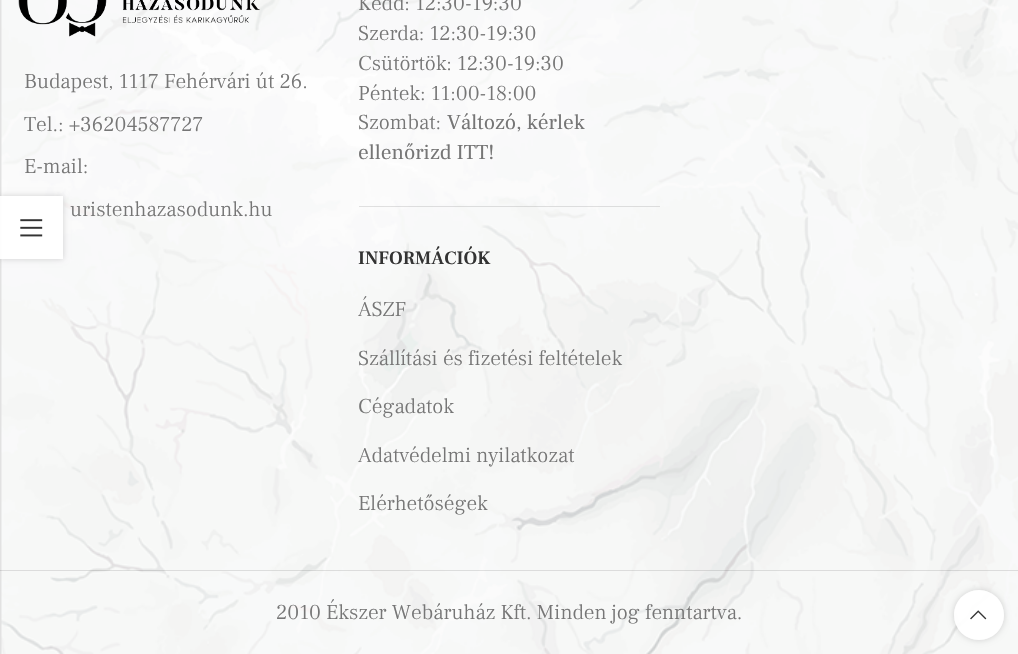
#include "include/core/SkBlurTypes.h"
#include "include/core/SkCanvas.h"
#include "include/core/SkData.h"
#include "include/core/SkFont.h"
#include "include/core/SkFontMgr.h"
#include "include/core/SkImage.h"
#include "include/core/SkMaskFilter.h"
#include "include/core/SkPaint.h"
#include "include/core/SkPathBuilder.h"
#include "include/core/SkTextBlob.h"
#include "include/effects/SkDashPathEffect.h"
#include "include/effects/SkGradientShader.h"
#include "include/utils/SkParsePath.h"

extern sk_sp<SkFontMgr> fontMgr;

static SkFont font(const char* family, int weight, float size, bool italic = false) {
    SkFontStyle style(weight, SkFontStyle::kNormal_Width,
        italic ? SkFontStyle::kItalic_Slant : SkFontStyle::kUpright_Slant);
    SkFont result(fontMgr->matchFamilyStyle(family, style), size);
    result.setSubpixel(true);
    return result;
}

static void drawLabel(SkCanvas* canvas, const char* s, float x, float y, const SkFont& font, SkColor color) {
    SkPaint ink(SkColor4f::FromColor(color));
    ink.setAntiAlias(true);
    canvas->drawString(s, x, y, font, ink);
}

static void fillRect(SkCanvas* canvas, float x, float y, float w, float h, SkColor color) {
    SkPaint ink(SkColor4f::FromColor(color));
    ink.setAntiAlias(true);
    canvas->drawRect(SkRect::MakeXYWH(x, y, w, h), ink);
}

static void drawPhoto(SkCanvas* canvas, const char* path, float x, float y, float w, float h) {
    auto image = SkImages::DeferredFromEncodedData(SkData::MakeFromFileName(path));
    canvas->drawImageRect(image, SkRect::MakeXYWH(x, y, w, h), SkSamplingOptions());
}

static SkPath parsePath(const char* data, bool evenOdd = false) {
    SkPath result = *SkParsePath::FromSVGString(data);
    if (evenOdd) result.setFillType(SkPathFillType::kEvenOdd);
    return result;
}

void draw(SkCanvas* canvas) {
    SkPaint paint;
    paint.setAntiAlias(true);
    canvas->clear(0xFFE2E2E2);
    drawPhoto(canvas, "assets/img1.png", 1, 0, 1017, 654);
    drawPhoto(canvas, "assets/img2.png", 18, 0, 242, 37);
    SkFont font1 = font("Frank Ruhl Libre", 300, 21.25f);
    drawLabel(canvas, "Budapest, 1117 Fehérvári út 26.", 24, 88, font1, 0xFF767676);
    drawLabel(canvas, "Tel.: +36204587727", 24, 131, font1, 0xFF767676);
    drawLabel(canvas, "E-mail:", 24, 173, font1, 0xFF767676);
    drawLabel(canvas, "uristenhazasodunk.hu", 70, 216, font1, 0xFF767676);
    fillRect(canvas, 359, 206, 301, 1, 0x1C000000);
    drawLabel(canvas, "Kedd: 12:30-19:30", 358, 10, font1, 0xFF767676);
    drawLabel(canvas, "Szerda: 12:30-19:30", 358, 40, font1, 0xFF767676);
    drawLabel(canvas, "Csütörtök: 12:30-19:30", 358, 70, font1, 0xFF767676);
    drawLabel(canvas, "Péntek: 11:00-18:00", 358, 100, font1, 0xFF767676);
    drawLabel(canvas, "Szombat:", 358, 129, font1, 0xFF767676);
    SkFont font2 = font("Frank Ruhl Libre", 400, 21.25f);
    drawLabel(canvas, "Változó, kérlek", 447, 129, font2, 0xFF767676);
    drawLabel(canvas, "ellenőrizd ITT!", 358, 159, font2, 0xFF767676);
    SkFont font3 = font("Frank Ruhl Libre", 600, 18.75f);
    drawLabel(canvas, "INFORMÁCIÓK", 358, 264, font3, 0xFF333333);
    drawLabel(canvas, "ÁSZF", 358, 316, font1, 0xFF767676);
    drawLabel(canvas, "Szállítási és fizetési feltételek", 358, 365, font1, 0xFF767676);
    drawLabel(canvas, "Cégadatok", 358, 413, font1, 0xFF767676);
    drawLabel(canvas, "Adatvédelmi nyilatkozat", 358, 462, font1, 0xFF767676);
    drawLabel(canvas, "Elérhetőségek", 358, 510, font1, 0xFF767676);
    fillRect(canvas, 0, 570, 1018, 1, 0x1C000000);
    drawLabel(canvas, "2010 Ékszer Webáruház Kft. Minden jog fenntartva.", 276, 619, font1, 0xFF767676);
    canvas->save();
    canvas->clipPath(parsePath("M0 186H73V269H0ZM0 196H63V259H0Z", true), true);
    paint.setColor(0x2B000000);
    paint.setMaskFilter(SkMaskFilter::MakeBlur(kNormal_SkBlurStyle, 3));
    canvas->drawRect(SkRect::MakeXYWH(0, 196, 63, 63), paint);
    paint.setMaskFilter(nullptr);
    canvas->restore();
    fillRect(canvas, 0, 196, 63, 63, 0xE6FFFFFF);
    drawPhoto(canvas, "assets/img3.png", 20, 219, 23, 18);
    canvas->save();
    canvas->clipPath(parsePath("M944 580H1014V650H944ZM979 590C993 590 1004 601 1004 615C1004 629 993 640 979 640C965 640 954 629 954 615C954 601 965 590 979 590Z", true), true);
    paint.setMaskFilter(SkMaskFilter::MakeBlur(kNormal_SkBlurStyle, 3));
    canvas->drawRoundRect(SkRect::MakeXYWH(954, 590, 50, 50), 25, 25, paint);
    paint.setMaskFilter(nullptr);
    canvas->restore();
    paint.setColor(0xE6FFFFFF);
    canvas->drawCircle(979, 615, 25, paint);
    drawPhoto(canvas, "assets/img4.png", 970, 610, 17, 10);
}
